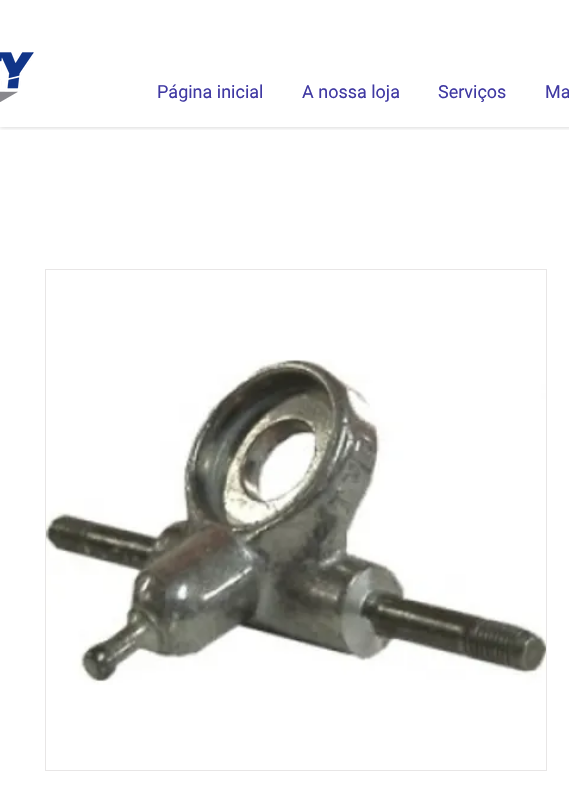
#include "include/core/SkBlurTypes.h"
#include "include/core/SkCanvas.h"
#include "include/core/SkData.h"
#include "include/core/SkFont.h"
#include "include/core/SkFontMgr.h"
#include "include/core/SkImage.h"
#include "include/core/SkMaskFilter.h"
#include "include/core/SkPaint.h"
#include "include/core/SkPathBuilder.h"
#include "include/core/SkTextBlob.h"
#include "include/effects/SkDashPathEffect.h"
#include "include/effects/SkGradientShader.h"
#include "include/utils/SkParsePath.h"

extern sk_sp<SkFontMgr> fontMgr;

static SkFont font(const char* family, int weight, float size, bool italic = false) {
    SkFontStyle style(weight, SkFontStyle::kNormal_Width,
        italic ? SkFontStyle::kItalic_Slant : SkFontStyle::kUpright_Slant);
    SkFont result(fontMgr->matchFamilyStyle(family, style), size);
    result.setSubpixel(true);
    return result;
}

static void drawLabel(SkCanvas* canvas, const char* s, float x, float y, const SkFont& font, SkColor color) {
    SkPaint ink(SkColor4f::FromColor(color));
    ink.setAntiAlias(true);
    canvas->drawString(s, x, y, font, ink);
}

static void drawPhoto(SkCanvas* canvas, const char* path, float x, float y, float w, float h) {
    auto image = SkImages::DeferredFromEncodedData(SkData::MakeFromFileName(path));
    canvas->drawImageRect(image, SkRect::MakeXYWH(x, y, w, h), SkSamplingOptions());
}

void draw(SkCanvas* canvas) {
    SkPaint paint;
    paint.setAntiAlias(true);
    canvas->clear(0xFFFFFFFF);
    canvas->save();
    canvas->clipRect(SkRect::MakeXYWH(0, 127, 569, 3));
    paint.setColor(0x33000000);
    paint.setMaskFilter(SkMaskFilter::MakeBlur(kNormal_SkBlurStyle, 2.5f));
    canvas->drawRect(SkRect::MakeXYWH(0, 0, 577, 127), paint);
    paint.setMaskFilter(nullptr);
    canvas->restore();
    drawPhoto(canvas, "assets/img1.png", 0, 52, 34, 50);
    SkFont font1 = font("Roboto", 400, 18);
    drawLabel(canvas, "Página inicial", 157, 98, font1, 0xFF4039A3);
    drawLabel(canvas, "A nossa loja", 302, 98, font1, 0xFF4039A3);
    drawLabel(canvas, "Serviços", 438, 98, font1, 0xFF4039A3);
    drawLabel(canvas, "Ma", 545, 98, font1, 0xFF4039A3);
    paint.setStroke(true);
    paint.setStrokeWidth(1);
    paint.setColor(0xFFE8E6E6);
    canvas->drawRect(SkRect::MakeXYWH(45.5f, 269.5f, 501, 501), paint);
    drawPhoto(canvas, "assets/img2.png", 46, 359, 500, 326);
}
